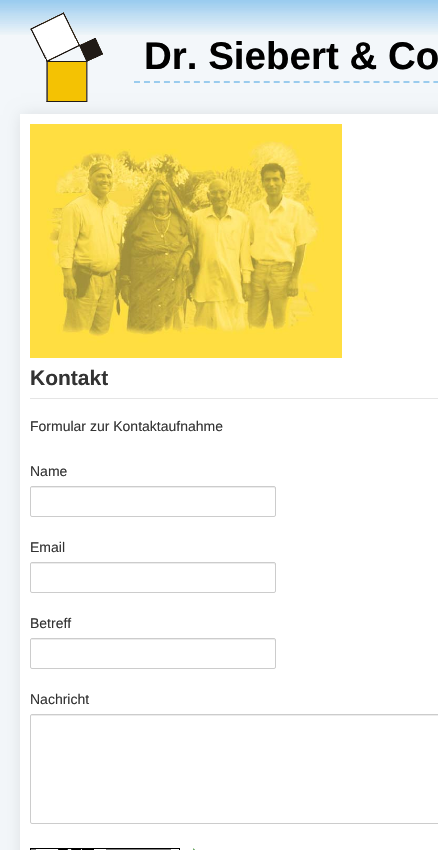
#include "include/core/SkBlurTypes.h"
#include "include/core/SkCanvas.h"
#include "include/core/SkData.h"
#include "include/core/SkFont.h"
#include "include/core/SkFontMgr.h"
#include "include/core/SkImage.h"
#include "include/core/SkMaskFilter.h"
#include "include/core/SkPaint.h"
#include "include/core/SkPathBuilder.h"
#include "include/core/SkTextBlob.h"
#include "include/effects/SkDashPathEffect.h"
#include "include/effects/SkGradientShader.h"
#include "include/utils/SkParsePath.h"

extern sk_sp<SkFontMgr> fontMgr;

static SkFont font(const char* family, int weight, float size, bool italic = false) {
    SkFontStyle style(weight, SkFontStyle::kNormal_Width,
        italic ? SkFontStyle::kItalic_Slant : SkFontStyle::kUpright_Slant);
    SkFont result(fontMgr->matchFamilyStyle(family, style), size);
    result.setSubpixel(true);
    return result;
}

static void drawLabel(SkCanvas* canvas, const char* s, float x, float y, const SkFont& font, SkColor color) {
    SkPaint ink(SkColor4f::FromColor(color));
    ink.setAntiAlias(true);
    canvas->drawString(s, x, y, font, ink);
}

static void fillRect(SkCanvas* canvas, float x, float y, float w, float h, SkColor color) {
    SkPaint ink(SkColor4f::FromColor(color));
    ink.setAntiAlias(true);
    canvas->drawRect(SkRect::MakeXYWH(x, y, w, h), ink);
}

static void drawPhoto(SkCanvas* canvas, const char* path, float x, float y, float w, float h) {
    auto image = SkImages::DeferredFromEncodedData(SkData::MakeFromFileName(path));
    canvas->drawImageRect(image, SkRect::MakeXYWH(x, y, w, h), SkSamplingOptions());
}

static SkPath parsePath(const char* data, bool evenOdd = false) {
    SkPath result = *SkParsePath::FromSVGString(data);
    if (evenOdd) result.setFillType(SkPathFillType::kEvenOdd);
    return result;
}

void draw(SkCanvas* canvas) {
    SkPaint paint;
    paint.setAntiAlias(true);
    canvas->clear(0xFFF3F7FA);
    drawPhoto(canvas, "assets/img1.png", 0, 0, 438, 35);
    paint.setColor(0x1A000000);
    paint.setMaskFilter(SkMaskFilter::MakeBlur(kNormal_SkBlurStyle, 7.5f));
    canvas->drawRect(SkRect::MakeXYWH(21, 115, 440, 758), paint);
    paint.setMaskFilter(nullptr);
    drawPhoto(canvas, "assets/img2.png", 30, 12, 73, 90);
    paint.setStroke(true);
    paint.setStrokeWidth(2);
    paint.setColor(0xFF9ACCEE);
    paint.setPathEffect(SkDashPathEffect::Make({{6, 3.98f}}, 0));
    canvas->drawPath(parsePath("M134 82H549"), paint);
    paint.setPathEffect(nullptr);
    SkFont font1 = font("Liberation Sans", 700, 38.5f);
    drawLabel(canvas, "Dr. Siebert & Co", 144, 69, font1, 0xFF000000);
    fillRect(canvas, 20, 114, 418, 736, 0xFFFFFFFF);
    drawPhoto(canvas, "assets/img3.png", 30, 124, 312, 234);
    fillRect(canvas, 30, 398, 408, 1, 0xFFE5E5E5);
    SkFont font2 = font("Liberation Sans", 700, 21);
    drawLabel(canvas, "Kontakt", 30, 385, font2, 0xFF333333);
    SkFont font3 = font("Liberation Sans", 400, 14);
    drawLabel(canvas, "Formular zur Kontaktaufnahme", 30, 431, font3, 0xFF333333);
    drawLabel(canvas, "Name", 30, 476, font3, 0xFF333333);
    paint.setStroke(false);
    paint.setColor(0xFFECECEC);
    canvas->drawPath(parsePath("M32 487L31 488H274L275 489C275 488 275 487 274 487ZM275 514V516Z", true), paint);
    paint.setStroke(true);
    paint.setStrokeWidth(1);
    paint.setColor(0xFFCCCCCC);
    canvas->drawRoundRect(SkRect::MakeXYWH(30.5f, 486.5f, 245, 30), 1.5f, 1.5f, paint);
    drawLabel(canvas, "Email", 30, 552, font3, 0xFF333333);
    paint.setStroke(false);
    paint.setColor(0xFFECECEC);
    canvas->drawPath(parsePath("M32 563L31 564H274L275 565C275 564 275 563 274 563ZM275 590V592Z", true), paint);
    paint.setStroke(true);
    paint.setColor(0xFFCCCCCC);
    canvas->drawRoundRect(SkRect::MakeXYWH(30.5f, 562.5f, 245, 30), 1.5f, 1.5f, paint);
    drawLabel(canvas, "Betreff", 30, 628, font3, 0xFF333333);
    paint.setStroke(false);
    paint.setColor(0xFFECECEC);
    canvas->drawPath(parsePath("M32 639L31 640H274L275 641C275 640 275 639 274 639ZM275 666V668Z", true), paint);
    paint.setStroke(true);
    paint.setColor(0xFFCCCCCC);
    canvas->drawRoundRect(SkRect::MakeXYWH(30.5f, 638.5f, 245, 30), 1.5f, 1.5f, paint);
    drawLabel(canvas, "Nachricht", 30, 704, font3, 0xFF333333);
    paint.setStroke(false);
    paint.setColor(0xFFECECEC);
    canvas->drawPath(parsePath("M32 716H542C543 716 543 716 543 717C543 716 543 715 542 715H32L31 716V717C31 716 31 716 32 716Z"), paint);
    paint.setStroke(true);
    paint.setColor(0xFFCCCCCC);
    canvas->drawRoundRect(SkRect::MakeXYWH(30.5f, 714.5f, 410, 109), 1.5f, 1.5f, paint);
    drawPhoto(canvas, "assets/img4.png", 30, 848, 150, 2);
    drawPhoto(canvas, "assets/img5.png", 193, 848, 2, 2);
}
